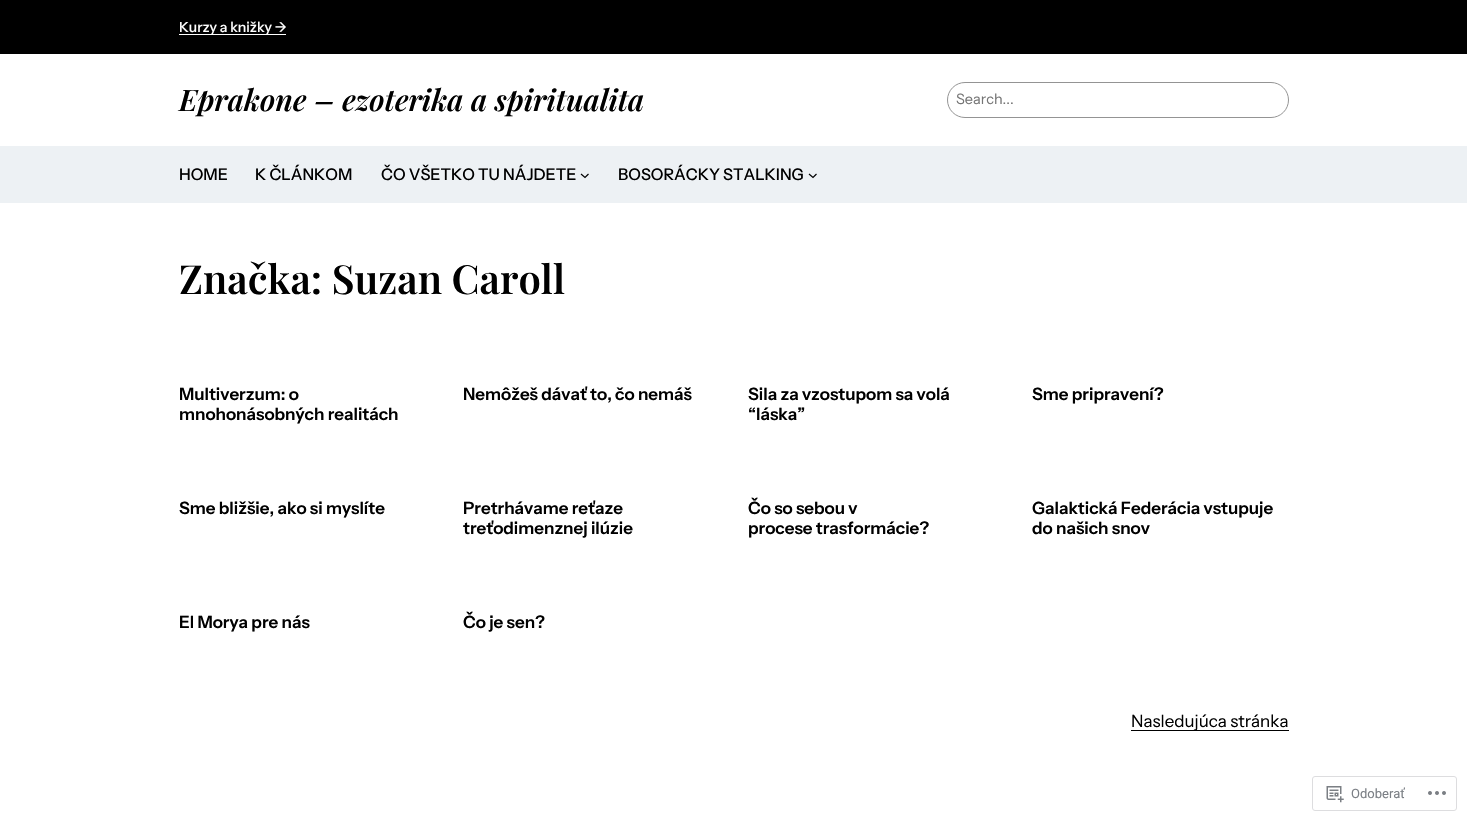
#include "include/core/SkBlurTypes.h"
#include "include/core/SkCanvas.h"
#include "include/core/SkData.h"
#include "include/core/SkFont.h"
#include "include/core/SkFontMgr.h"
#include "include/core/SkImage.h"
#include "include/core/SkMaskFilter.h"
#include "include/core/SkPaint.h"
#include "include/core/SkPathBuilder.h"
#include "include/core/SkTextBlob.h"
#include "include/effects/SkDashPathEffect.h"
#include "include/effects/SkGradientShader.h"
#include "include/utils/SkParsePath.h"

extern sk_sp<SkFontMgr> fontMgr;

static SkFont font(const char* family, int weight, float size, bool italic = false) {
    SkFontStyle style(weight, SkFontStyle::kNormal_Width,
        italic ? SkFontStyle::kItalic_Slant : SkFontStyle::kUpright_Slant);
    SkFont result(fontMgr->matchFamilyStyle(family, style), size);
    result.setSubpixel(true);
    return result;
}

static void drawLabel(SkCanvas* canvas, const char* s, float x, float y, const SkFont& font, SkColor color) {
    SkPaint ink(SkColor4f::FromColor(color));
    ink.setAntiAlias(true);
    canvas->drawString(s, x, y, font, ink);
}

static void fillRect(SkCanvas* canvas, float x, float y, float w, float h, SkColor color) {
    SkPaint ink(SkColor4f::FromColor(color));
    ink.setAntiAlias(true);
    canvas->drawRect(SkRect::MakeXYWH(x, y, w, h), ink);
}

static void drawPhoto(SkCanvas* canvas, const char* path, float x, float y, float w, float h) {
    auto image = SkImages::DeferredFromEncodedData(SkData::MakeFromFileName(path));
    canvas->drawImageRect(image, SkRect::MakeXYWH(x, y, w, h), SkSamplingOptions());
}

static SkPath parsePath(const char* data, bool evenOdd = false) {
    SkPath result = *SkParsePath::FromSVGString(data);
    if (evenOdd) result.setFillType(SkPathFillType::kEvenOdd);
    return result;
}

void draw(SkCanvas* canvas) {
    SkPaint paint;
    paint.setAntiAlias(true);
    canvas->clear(0xFFFFFFFF);
    fillRect(canvas, 0, 0, 1467, 54, 0xFF000000);
    fillRect(canvas, 179, 34, 107, 1, 0xFFFFFFFF);
    SkFont font1 = font("Instrument Sans", 500, 14);
    drawLabel(canvas, "Kurzy a knižky →", 179, 32, font1, 0xFFFFFFFF);
    SkFont font2 = font("Playfair Display", 600, 29.6f, true);
    drawLabel(canvas, "Eprakone – ezoterika a spiritualita", 179, 111, font2, 0xFF000000);
    paint.setStroke(true);
    paint.setStrokeWidth(1);
    paint.setColor(0xFF949494);
    canvas->drawRoundRect(SkRect::MakeXYWH(947.5f, 82.5f, 341, 35), 17.5f, 17.5f, paint);
    SkFont font3 = font("Instrument Sans", 400, 14.5f);
    drawLabel(canvas, "Search...", 956, 104, font3, 0xFF757575);
    fillRect(canvas, 0, 146, 1467, 57, 0xFFEDF1F4);
    SkFont font4 = font("Instrument Sans", 500, 16);
    drawLabel(canvas, "HOME", 179, 180, font4, 0xFF000000);
    drawLabel(canvas, "K ČLÁNKOM", 255, 180, font4, 0xFF000000);
    drawLabel(canvas, "ČO VŠETKO TU NÁJDETE", 381, 180, font4, 0xFF000000);
    paint.setStrokeWidth(1.2f);
    paint.setColor(0xFF000000);
    canvas->drawPath(parsePath("M581 174L585 177.5L588.5 174"), paint);
    drawLabel(canvas, "BOSORÁCKY STALKING", 618, 180, font4, 0xFF000000);
    canvas->drawPath(parsePath("M809 174L813 177.5L816.5 174"), paint);
    SkFont font5 = font("Playfair Display", 600, 40);
    drawLabel(canvas, "Značka: Suzan Caroll", 179, 294, font5, 0xFF000000);
    SkFont font6 = font("Instrument Sans", 600, 17);
    drawLabel(canvas, "Multiverzum: o", 179, 400, font6, 0xFF000000);
    drawLabel(canvas, "mnohonásobných realitách", 179, 420, font6, 0xFF000000);
    drawLabel(canvas, "Nemôžeš dávať to, čo nemáš", 463, 400, font6, 0xFF000000);
    drawLabel(canvas, "Sila za vzostupom sa volá", 748, 400, font6, 0xFF000000);
    drawLabel(canvas, "“láska”", 748, 420, font6, 0xFF000000);
    drawLabel(canvas, "Sme pripravení?", 1032, 400, font6, 0xFF000000);
    drawLabel(canvas, "Sme bližšie, ako si myslíte", 179, 514, font6, 0xFF000000);
    drawLabel(canvas, "Pretrhávame reťaze", 463, 514, font6, 0xFF000000);
    drawLabel(canvas, "treťodimenznej ilúzie", 463, 534, font6, 0xFF000000);
    drawLabel(canvas, "Čo so sebou v", 748, 514, font6, 0xFF000000);
    drawLabel(canvas, "procese trasformácie?", 748, 534, font6, 0xFF000000);
    drawLabel(canvas, "Galaktická Federácia vstupuje", 1032, 514, font6, 0xFF000000);
    drawLabel(canvas, "do našich snov", 1032, 534, font6, 0xFF000000);
    drawLabel(canvas, "El Morya pre nás", 179, 628, font6, 0xFF000000);
    drawLabel(canvas, "Čo je sen?", 463, 628, font6, 0xFF000000);
    fillRect(canvas, 1131, 730, 158, 1, 0xFF000000);
    SkFont font7 = font("Instrument Sans", 400, 17);
    drawLabel(canvas, "Nasledujúca stránka", 1131, 727, font7, 0xFF000000);
    paint.setStrokeWidth(1);
    paint.setColor(0xFFDDDDDF);
    canvas->drawRoundRect(SkRect::MakeXYWH(1312.5f, 776.5f, 144, 34), 2.5f, 2.5f, paint);
    drawPhoto(canvas, "assets/img1.png", 1326, 786, 18, 17);
    SkFont font8 = font("Roboto", 400, 13);
    drawLabel(canvas, "Odoberať", 1351, 798, font8, 0xFF7B7F85);
    drawPhoto(canvas, "assets/img2.png", 1428, 791, 18, 4);
}
